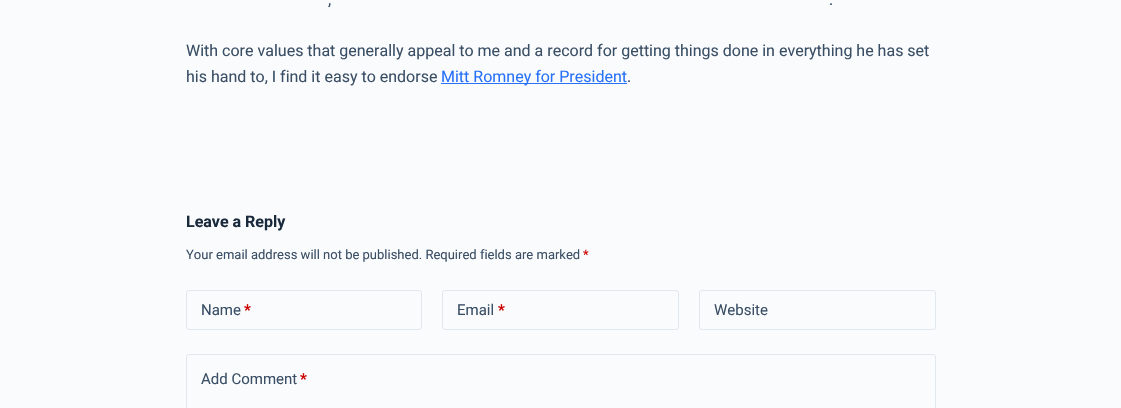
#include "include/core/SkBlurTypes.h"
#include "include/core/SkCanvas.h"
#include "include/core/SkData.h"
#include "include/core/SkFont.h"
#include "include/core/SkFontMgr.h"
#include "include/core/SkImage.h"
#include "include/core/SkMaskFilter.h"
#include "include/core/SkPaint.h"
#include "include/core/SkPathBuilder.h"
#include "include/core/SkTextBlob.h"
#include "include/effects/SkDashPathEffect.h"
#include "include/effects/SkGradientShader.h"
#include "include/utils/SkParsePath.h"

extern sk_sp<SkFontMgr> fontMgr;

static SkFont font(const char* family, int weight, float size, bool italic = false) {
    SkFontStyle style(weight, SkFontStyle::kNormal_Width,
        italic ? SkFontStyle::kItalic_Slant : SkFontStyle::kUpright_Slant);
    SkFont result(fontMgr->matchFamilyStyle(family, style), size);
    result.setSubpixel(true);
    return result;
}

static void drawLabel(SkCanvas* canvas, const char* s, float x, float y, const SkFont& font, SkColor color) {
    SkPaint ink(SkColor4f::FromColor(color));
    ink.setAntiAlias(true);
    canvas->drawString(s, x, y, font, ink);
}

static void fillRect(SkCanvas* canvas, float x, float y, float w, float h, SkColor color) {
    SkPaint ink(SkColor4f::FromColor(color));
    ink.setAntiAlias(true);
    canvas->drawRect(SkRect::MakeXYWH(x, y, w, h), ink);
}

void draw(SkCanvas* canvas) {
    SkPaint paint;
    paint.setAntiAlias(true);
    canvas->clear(0xFFFAFBFC);
    SkFont font1 = font("Roboto", 400, 16);
    drawLabel(canvas, ",", 328, 5, font1, 0xFF3A4F66);
    drawLabel(canvas, ".", 829, 5, font1, 0xFF3A4F66);
    drawLabel(canvas, "With core values that generally appeal to me and a record for getting things done in everything he has set", 186, 56, font1, 0xFF3A4F66);
    drawLabel(canvas, "his hand to, I find it easy to endorse", 186, 82, font1, 0xFF3A4F66);
    fillRect(canvas, 441, 83, 186, 1, 0xFF2872FA);
    drawLabel(canvas, "Mitt Romney for President", 441, 82, font1, 0xFF2872FA);
    drawLabel(canvas, ".", 627, 82, font1, 0xFF3A4F66);
    SkFont font2 = font("Roboto", 700, 16);
    drawLabel(canvas, "Leave a Reply", 186, 227, font2, 0xFF192A3D);
    SkFont font3 = font("Roboto", 400, 13);
    drawLabel(canvas, "Your email address will not be published. Required fields are marked", 186, 259, font3, 0xFF3A4F66);
    drawLabel(canvas, "*", 583, 259, font3, 0xFFCC0000);
    paint.setStroke(true);
    paint.setStrokeWidth(1);
    paint.setColor(0xFFE1E8ED);
    canvas->drawRoundRect(SkRect::MakeXYWH(186.5f, 290.5f, 235, 39), 2.5f, 2.5f, paint);
    SkFont font4 = font("Roboto", 400, 15);
    drawLabel(canvas, "Name", 201, 315, font4, 0xFF3A4F66);
    SkFont font5 = font("Roboto", 700, 15);
    drawLabel(canvas, "*", 244, 315, font5, 0xFFCC0000);
    canvas->drawRoundRect(SkRect::MakeXYWH(442.5f, 290.5f, 236, 39), 2.5f, 2.5f, paint);
    drawLabel(canvas, "Email", 457, 315, font4, 0xFF3A4F66);
    drawLabel(canvas, "*", 498, 315, font5, 0xFFCC0000);
    canvas->drawRoundRect(SkRect::MakeXYWH(699.5f, 290.5f, 236, 39), 2.5f, 2.5f, paint);
    drawLabel(canvas, "Website", 714, 315, font4, 0xFF3A4F66);
    canvas->drawRoundRect(SkRect::MakeXYWH(186.5f, 354.5f, 749, 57), 2.5f, 2.5f, paint);
    drawLabel(canvas, "Add Comment", 201, 384, font4, 0xFF3A4F66);
    drawLabel(canvas, "*", 300, 384, font5, 0xFFCC0000);
}
